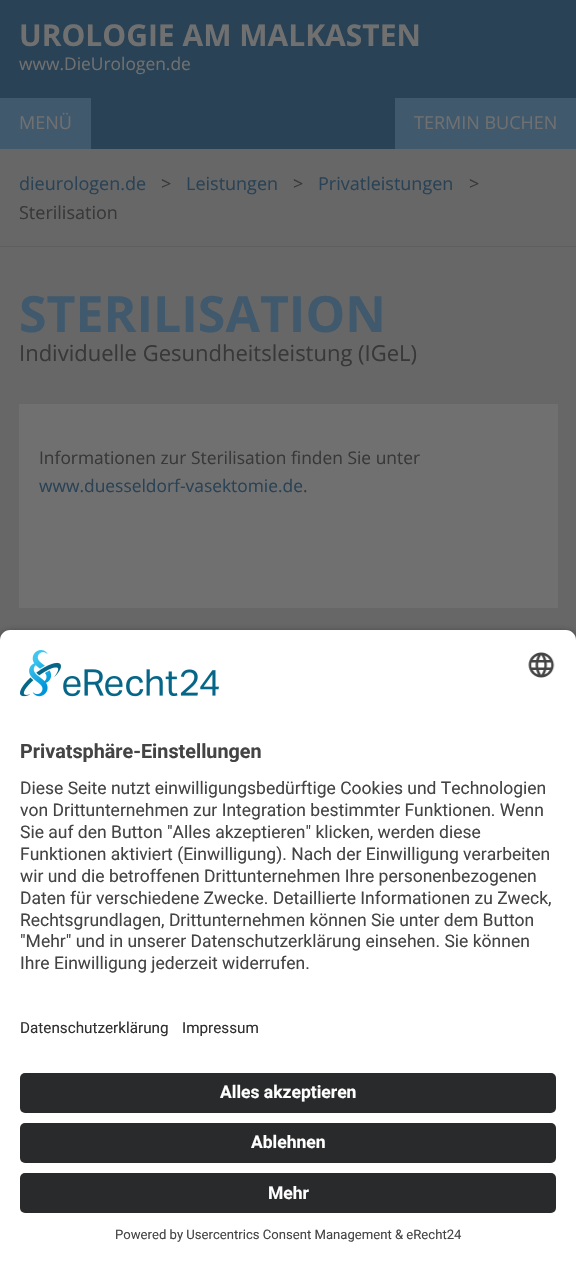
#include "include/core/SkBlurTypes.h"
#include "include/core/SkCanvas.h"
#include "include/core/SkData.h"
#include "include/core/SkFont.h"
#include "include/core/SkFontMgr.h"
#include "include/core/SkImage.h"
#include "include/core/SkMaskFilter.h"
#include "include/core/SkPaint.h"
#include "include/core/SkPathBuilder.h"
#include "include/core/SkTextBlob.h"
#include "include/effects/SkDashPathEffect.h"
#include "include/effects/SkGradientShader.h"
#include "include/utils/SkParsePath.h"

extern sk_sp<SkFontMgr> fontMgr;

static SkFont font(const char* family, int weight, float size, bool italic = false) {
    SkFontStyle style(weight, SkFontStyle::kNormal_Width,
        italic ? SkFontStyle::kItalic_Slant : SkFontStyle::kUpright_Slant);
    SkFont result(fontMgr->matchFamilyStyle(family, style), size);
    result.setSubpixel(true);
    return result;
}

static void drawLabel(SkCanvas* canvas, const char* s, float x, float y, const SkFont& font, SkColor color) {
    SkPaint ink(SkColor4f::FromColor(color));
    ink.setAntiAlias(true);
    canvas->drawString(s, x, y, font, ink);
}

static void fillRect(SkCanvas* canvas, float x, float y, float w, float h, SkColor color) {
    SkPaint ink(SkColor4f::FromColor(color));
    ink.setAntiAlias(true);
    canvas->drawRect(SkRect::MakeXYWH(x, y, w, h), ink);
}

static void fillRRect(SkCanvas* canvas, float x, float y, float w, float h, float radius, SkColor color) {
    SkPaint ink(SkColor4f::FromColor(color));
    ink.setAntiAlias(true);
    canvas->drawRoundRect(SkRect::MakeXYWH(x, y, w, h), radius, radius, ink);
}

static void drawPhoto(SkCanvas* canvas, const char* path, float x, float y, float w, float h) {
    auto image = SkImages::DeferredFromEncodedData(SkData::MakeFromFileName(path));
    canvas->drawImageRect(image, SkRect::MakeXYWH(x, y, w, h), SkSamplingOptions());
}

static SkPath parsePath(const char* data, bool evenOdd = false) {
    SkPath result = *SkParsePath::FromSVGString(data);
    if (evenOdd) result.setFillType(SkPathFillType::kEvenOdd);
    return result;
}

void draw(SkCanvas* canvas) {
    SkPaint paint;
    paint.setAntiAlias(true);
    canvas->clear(0xFF676767);
    fillRect(canvas, 0, 0, 576, 149, 0xFF294255);
    SkFont font1 = font("Open Sans", 700, 30);
    drawLabel(canvas, "UROLOGIE AM MALKASTEN", 19, 46, font1, 0xFF707070);
    SkFont font2 = font("Open Sans", 400, 17.4f);
    drawLabel(canvas, "www.DieUrologen.de", 19, 70, font2, 0xFF707070);
    fillRect(canvas, 0, 98, 91, 51, 0xFF41596D);
    SkFont font3 = font("Open Sans", 400, 18);
    drawLabel(canvas, "MENÜ", 19, 129, font3, 0xFF707070);
    fillRect(canvas, 395, 98, 181, 51, 0xFF41596D);
    drawLabel(canvas, "TERMIN BUCHEN", 414, 129, font3, 0xFF707070);
    fillRect(canvas, 0, 246, 576, 1, 0xFF5E5E5E);
    drawLabel(canvas, "dieurologen.de", 19, 190, font3, 0xFF294255);
    drawLabel(canvas, ">", 161, 190, font3, 0xFF383838);
    drawLabel(canvas, "Leistungen", 186, 190, font3, 0xFF294255);
    drawLabel(canvas, ">", 293, 190, font3, 0xFF383838);
    drawLabel(canvas, "Privatleistungen", 318, 190, font3, 0xFF294255);
    drawLabel(canvas, ">", 469, 190, font3, 0xFF383838);
    drawLabel(canvas, "Sterilisation", 19, 219, font3, 0xFF383838);
    SkFont font4 = font("Open Sans", 700, 50);
    drawLabel(canvas, "STERILISATION", 19, 332, font4, 0xFF41596D);
    SkFont font5 = font("Open Sans", 400, 22);
    drawLabel(canvas, "Individuelle Gesundheitsleistung (IGeL)", 19, 361, font5, 0xFF383838);
    fillRect(canvas, 19, 404, 539, 204, 0xFF707070);
    drawLabel(canvas, "Informationen zur Sterilisation finden Sie unter", 39, 464, font2, 0xFF383838);
    drawLabel(canvas, "www.duesseldorf-vasektomie.de", 39, 492, font2, 0xFF294255);
    drawLabel(canvas, ".", 303, 492, font2, 0xFF383838);
    paint.setColor(0xCC000000);
    paint.setMaskFilter(SkMaskFilter::MakeBlur(kNormal_SkBlurStyle, 4.5f));
    canvas->drawRoundRect(SkRect::MakeXYWH(0, 634, 576, 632), 10, 10, paint);
    paint.setMaskFilter(nullptr);
    paint.setColor(0xFFFFFFFF);
    canvas->drawPath(parsePath("M10 630H566C571.5 630 576 634.5 576 640V1000H0V640C0 634.5 4.5 630 10 630Z"), paint);
    drawPhoto(canvas, "assets/img1.png", 20, 650, 199, 47);
    drawPhoto(canvas, "assets/img2.png", 528, 652, 27, 26);
    SkFont font6 = font("Roboto", 700, 19.75f);
    drawLabel(canvas, "Privatsphäre-Einstellungen", 20, 758, font6, 0xFF444444);
    SkFont font7 = font("Roboto", 400, 17.5f);
    drawLabel(canvas, "Diese Seite nutzt einwilligungsbedürftige Cookies und Technologien", 20, 794, font7, 0xFF444444);
    drawLabel(canvas, "von Drittunternehmen zur Integration bestimmter Funktionen. Wenn", 20, 816, font7, 0xFF444444);
    drawLabel(canvas, "Sie auf den Button \"Alles akzeptieren\" klicken, werden diese", 20, 838, font7, 0xFF444444);
    drawLabel(canvas, "Funktionen aktiviert (Einwilligung). Nach der Einwilligung verarbeiten", 20, 860, font7, 0xFF444444);
    drawLabel(canvas, "wir und die betroffenen Drittunternehmen Ihre personenbezogenen", 20, 882, font7, 0xFF444444);
    drawLabel(canvas, "Daten für verschiedene Zwecke. Detaillierte Informationen zu Zweck,", 20, 904, font7, 0xFF444444);
    drawLabel(canvas, "Rechtsgrundlagen, Drittunternehmen können Sie unter dem Button", 20, 926, font7, 0xFF444444);
    drawLabel(canvas, "\"Mehr\" und in unserer Datenschutzerklärung einsehen. Sie können", 20, 947, font7, 0xFF444444);
    drawLabel(canvas, "Ihre Einwilligung jederzeit widerrufen.", 20, 969, font7, 0xFF444444);
    fillRect(canvas, 0, 1000, 576, 262, 0xFFFFFFFF);
    SkFont font8 = font("Roboto", 400, 15.25f);
    drawLabel(canvas, "Datenschutzerklärung", 20, 1033, font8, 0xFF303030);
    drawLabel(canvas, "Impressum", 182, 1033, font8, 0xFF303030);
    fillRRect(canvas, 20, 1073, 536, 40, 5, 0xFF292A2B);
    SkFont font9 = font("Roboto", 700, 17.5f);
    drawLabel(canvas, "Alles akzeptieren", 220, 1098, font9, 0xFFFFFFFF);
    fillRRect(canvas, 20, 1123, 536, 40, 5, 0xFF292A2B);
    drawLabel(canvas, "Ablehnen", 251, 1148, font9, 0xFFFFFFFF);
    fillRRect(canvas, 20, 1173, 536, 40, 5, 0xFF292A2B);
    drawLabel(canvas, "Mehr", 268, 1199, font9, 0xFFFFFFFF);
    SkFont font10 = font("Roboto", 400, 13.1f);
    drawLabel(canvas, "Powered by Usercentrics Consent Management & eRecht24", 115, 1239, font10, 0xFF444444);
}
